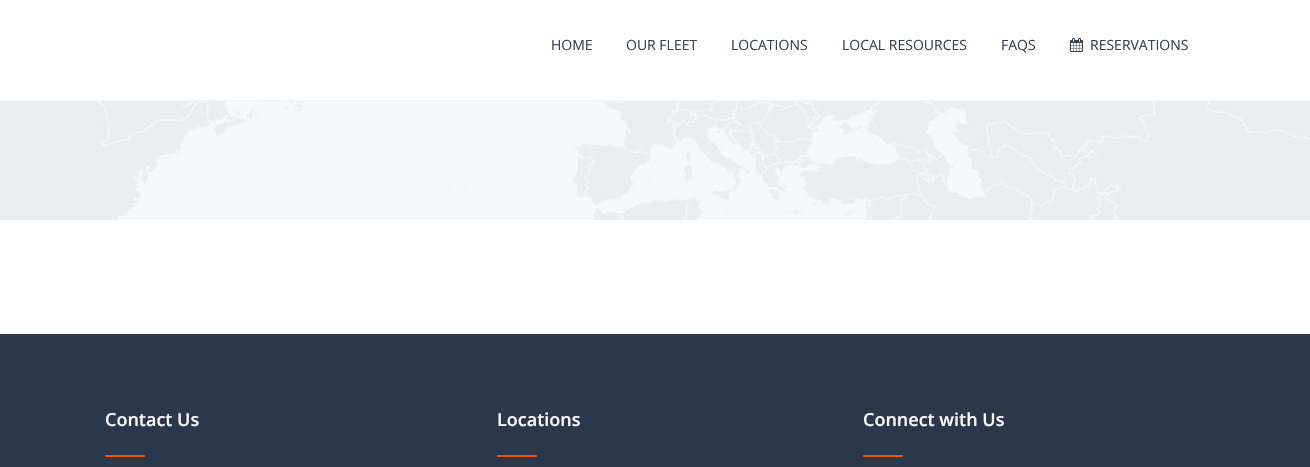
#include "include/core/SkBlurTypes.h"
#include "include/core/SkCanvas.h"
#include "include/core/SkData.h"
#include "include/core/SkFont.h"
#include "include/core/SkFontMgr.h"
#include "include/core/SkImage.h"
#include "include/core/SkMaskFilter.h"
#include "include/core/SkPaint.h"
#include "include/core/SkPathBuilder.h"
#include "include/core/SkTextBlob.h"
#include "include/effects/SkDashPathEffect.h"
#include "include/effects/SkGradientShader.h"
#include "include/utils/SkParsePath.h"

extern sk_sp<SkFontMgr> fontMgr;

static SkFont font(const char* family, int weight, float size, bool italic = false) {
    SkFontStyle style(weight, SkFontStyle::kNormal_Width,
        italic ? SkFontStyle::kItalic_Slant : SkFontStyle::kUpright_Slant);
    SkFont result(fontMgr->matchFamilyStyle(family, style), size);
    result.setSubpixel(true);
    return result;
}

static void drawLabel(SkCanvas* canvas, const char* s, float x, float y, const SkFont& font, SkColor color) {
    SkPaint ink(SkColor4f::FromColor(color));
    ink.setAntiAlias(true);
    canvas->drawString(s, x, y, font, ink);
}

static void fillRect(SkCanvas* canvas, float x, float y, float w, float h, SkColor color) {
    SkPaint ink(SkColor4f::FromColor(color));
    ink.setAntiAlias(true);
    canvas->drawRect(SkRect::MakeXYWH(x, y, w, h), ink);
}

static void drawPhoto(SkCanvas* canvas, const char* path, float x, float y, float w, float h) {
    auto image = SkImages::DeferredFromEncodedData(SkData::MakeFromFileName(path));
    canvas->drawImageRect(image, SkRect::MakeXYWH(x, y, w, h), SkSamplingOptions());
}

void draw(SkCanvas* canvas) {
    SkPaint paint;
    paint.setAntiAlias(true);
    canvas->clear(0xFFFFFFFF);
    fillRect(canvas, 0, 100, 1310, 1, 0xFFF1F3F4);
    SkFont font1 = font("Open Sans", 400, 14);
    drawLabel(canvas, "HOME", 551, 50, font1, 0xFF354256);
    drawLabel(canvas, "OUR FLEET", 626, 50, font1, 0xFF354256);
    drawLabel(canvas, "LOCATIONS", 731, 50, font1, 0xFF354256);
    drawLabel(canvas, "LOCAL RESOURCES", 842, 50, font1, 0xFF354256);
    drawLabel(canvas, "FAQS", 1001, 50, font1, 0xFF354256);
    drawPhoto(canvas, "assets/img1.png", 1070, 38, 13, 14);
    drawLabel(canvas, "RESERVATIONS", 1090, 50, font1, 0xFF354256);
    drawPhoto(canvas, "assets/img2.png", 0, 101, 1310, 119);
    fillRect(canvas, 0, 334, 1310, 133, 0xFF2B374A);
    SkFont font2 = font("Open Sans", 600, 18);
    drawLabel(canvas, "Contact Us", 105, 426, font2, 0xFFFFFFFF);
    fillRect(canvas, 105, 455, 40, 2, 0xFFED5505);
    drawLabel(canvas, "Locations", 497, 426, font2, 0xFFFFFFFF);
    fillRect(canvas, 497, 455, 40, 2, 0xFFED5505);
    drawLabel(canvas, "Connect with Us", 863, 426, font2, 0xFFFFFFFF);
    fillRect(canvas, 863, 455, 40, 2, 0xFFED5505);
}
